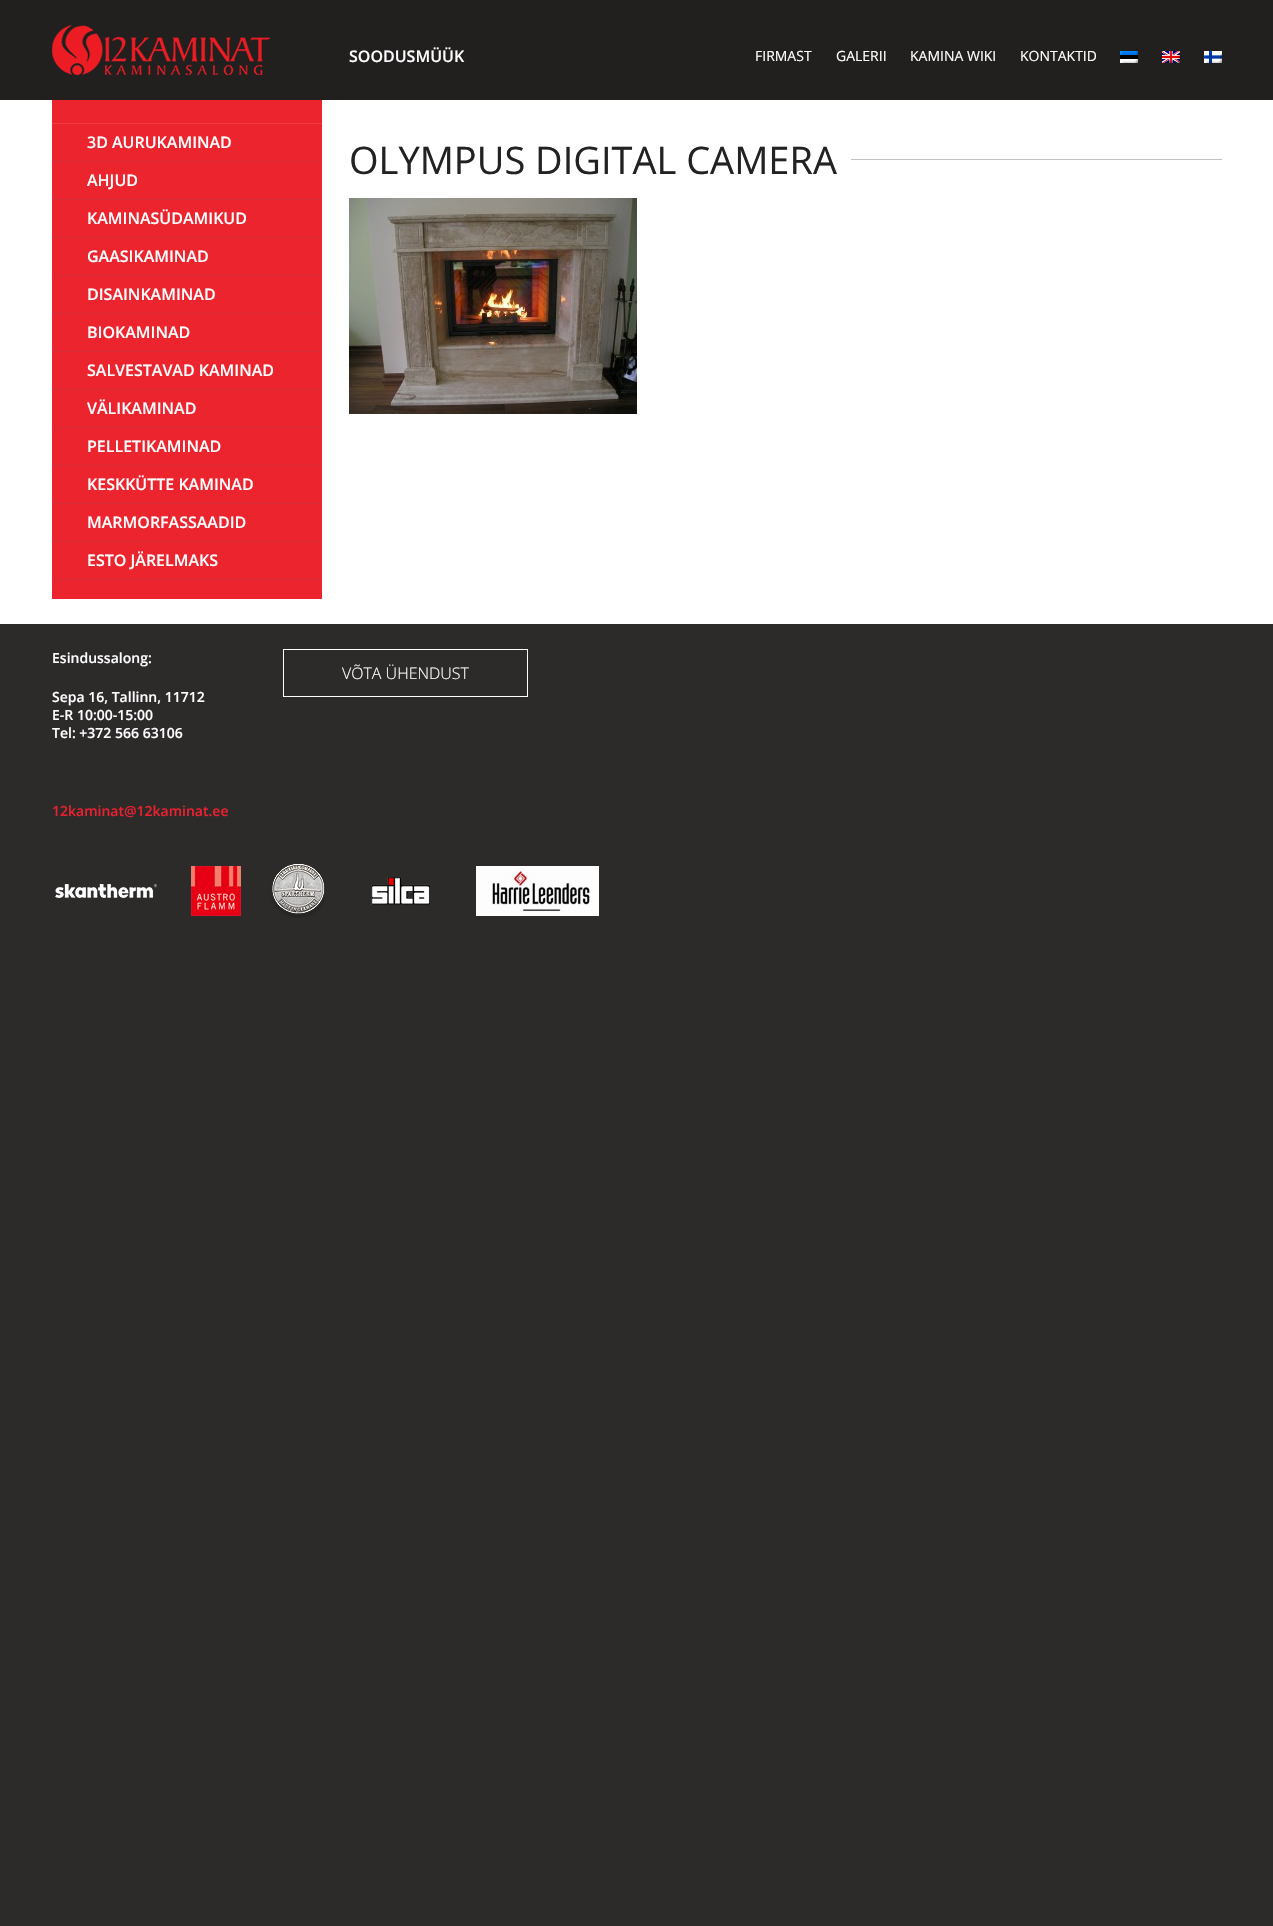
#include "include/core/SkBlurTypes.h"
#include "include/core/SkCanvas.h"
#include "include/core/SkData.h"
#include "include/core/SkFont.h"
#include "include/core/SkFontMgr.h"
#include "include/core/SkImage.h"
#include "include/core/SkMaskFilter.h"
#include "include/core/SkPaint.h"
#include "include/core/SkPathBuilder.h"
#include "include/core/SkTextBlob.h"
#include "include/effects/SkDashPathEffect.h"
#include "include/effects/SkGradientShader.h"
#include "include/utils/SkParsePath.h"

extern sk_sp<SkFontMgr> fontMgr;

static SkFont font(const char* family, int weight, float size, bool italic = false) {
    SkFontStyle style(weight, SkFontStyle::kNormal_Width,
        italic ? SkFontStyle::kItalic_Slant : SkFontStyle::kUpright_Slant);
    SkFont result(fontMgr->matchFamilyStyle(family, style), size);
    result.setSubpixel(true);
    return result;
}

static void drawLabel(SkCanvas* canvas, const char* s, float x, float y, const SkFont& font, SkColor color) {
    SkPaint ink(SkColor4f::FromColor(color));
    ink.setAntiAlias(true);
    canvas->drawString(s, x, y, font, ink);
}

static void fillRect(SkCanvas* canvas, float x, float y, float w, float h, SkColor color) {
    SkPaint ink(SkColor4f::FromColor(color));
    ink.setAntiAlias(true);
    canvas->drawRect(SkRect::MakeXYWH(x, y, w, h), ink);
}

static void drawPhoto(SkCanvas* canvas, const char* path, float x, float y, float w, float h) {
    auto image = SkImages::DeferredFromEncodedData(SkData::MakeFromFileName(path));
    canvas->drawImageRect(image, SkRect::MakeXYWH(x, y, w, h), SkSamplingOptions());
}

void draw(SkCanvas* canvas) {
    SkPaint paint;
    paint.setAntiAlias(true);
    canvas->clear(0xFF2D2A2A);
    fillRect(canvas, 0, 0, 1273, 100, 0xFF221F1F);
    drawPhoto(canvas, "assets/img1.png", 52, 25, 218, 50);
    SkFont font1 = font("Open Sans", 600, 16);
    drawLabel(canvas, "SOODUSMÜÜK", 349, 62, font1, 0xFFFFFFFF);
    SkFont font2 = font("Open Sans", 400, 14);
    drawLabel(canvas, "FIRMAST", 755, 61, font2, 0xFFFFFFFF);
    drawLabel(canvas, "GALERII", 836, 61, font2, 0xFFFFFFFF);
    drawLabel(canvas, "KAMINA WIKI", 910, 61, font2, 0xFFFFFFFF);
    drawLabel(canvas, "KONTAKTID", 1020, 61, font2, 0xFFFFFFFF);
    drawPhoto(canvas, "assets/img2.png", 1120, 51, 18, 12);
    drawPhoto(canvas, "assets/img3.png", 1162, 51, 18, 12);
    drawPhoto(canvas, "assets/img4.png", 1204, 51, 18, 12);
    fillRect(canvas, 0, 100, 1273, 524, 0xFFFFFFFF);
    fillRect(canvas, 52, 100, 270, 499, 0xFFEB242E);
    fillRect(canvas, 52, 123, 270, 1, 0xFFF33B44);
    fillRect(canvas, 52, 161, 270, 1, 0xFFD52E36);
    drawLabel(canvas, "3D AURUKAMINAD", 87, 148, font1, 0xFFFFFFFF);
    fillRect(canvas, 52, 199, 270, 1, 0xFFD52E36);
    drawLabel(canvas, "AHJUD", 87, 186, font1, 0xFFFFFFFF);
    fillRect(canvas, 52, 237, 270, 1, 0xFFD52E36);
    drawLabel(canvas, "KAMINASÜDAMIKUD", 87, 224, font1, 0xFFFFFFFF);
    fillRect(canvas, 52, 275, 270, 1, 0xFFD52E36);
    drawLabel(canvas, "GAASIKAMINAD", 87, 262, font1, 0xFFFFFFFF);
    fillRect(canvas, 52, 313, 270, 1, 0xFFD52E36);
    drawLabel(canvas, "DISAINKAMINAD", 87, 300, font1, 0xFFFFFFFF);
    fillRect(canvas, 52, 351, 270, 1, 0xFFD52E36);
    drawLabel(canvas, "BIOKAMINAD", 87, 338, font1, 0xFFFFFFFF);
    fillRect(canvas, 52, 389, 270, 1, 0xFFD52E36);
    drawLabel(canvas, "SALVESTAVAD KAMINAD", 87, 376, font1, 0xFFFFFFFF);
    fillRect(canvas, 52, 427, 270, 1, 0xFFD52E36);
    drawLabel(canvas, "VÄLIKAMINAD", 87, 414, font1, 0xFFFFFFFF);
    fillRect(canvas, 52, 465, 270, 1, 0xFFD52E36);
    drawLabel(canvas, "PELLETIKAMINAD", 87, 452, font1, 0xFFFFFFFF);
    fillRect(canvas, 52, 503, 270, 1, 0xFFD52E36);
    drawLabel(canvas, "KESKKÜTTE KAMINAD", 87, 490, font1, 0xFFFFFFFF);
    fillRect(canvas, 52, 541, 270, 1, 0xFFD52E36);
    drawLabel(canvas, "MARMORFASSAADID", 87, 528, font1, 0xFFFFFFFF);
    fillRect(canvas, 52, 579, 270, 1, 0xFFD52E36);
    drawLabel(canvas, "ESTO JÄRELMAKS", 87, 566, font1, 0xFFFFFFFF);
    SkFont font3 = font("Open Sans", 400, 38);
    drawLabel(canvas, "OLYMPUS DIGITAL CAMERA", 349, 174, font3, 0xFF222222);
    fillRect(canvas, 851, 159, 371, 1, 0xFFC2C2C2);
    drawPhoto(canvas, "assets/img5.png", 349, 198, 288, 216);
    SkFont font4 = font("Open Sans", 600, 14);
    drawLabel(canvas, "Esindussalong:", 52, 663, font4, 0xFFFFFFFF);
    drawLabel(canvas, "Sepa 16, Tallinn, 11712", 52, 702, font4, 0xFFFFFFFF);
    drawLabel(canvas, "E-R 10:00-15:00", 52, 720, font4, 0xFFFFFFFF);
    drawLabel(canvas, "Tel: +372 566 63106", 52, 738, font4, 0xFFFFFFFF);
    drawLabel(canvas, "12kaminat@12kaminat.ee", 52, 816, font4, 0xFFEB212E);
    paint.setStroke(true);
    paint.setStrokeWidth(1);
    paint.setColor(0xFFFFFFFF);
    canvas->drawRect(SkRect::MakeXYWH(283.5f, 649.5f, 244, 47), paint);
    SkFont font5 = font("Open Sans", 300, 16);
    drawLabel(canvas, "VÕTA ÜHENDUST", 342, 679, font5, 0xFFFFFFFF);
    drawPhoto(canvas, "assets/img6.png", 55, 884, 102, 14);
    drawPhoto(canvas, "assets/img7.png", 191, 866, 50, 50);
    drawPhoto(canvas, "assets/img8.png", 270, 864, 56, 54);
    drawPhoto(canvas, "assets/img9.png", 371, 877, 59, 28);
    drawPhoto(canvas, "assets/img10.png", 476, 866, 123, 50);
}
